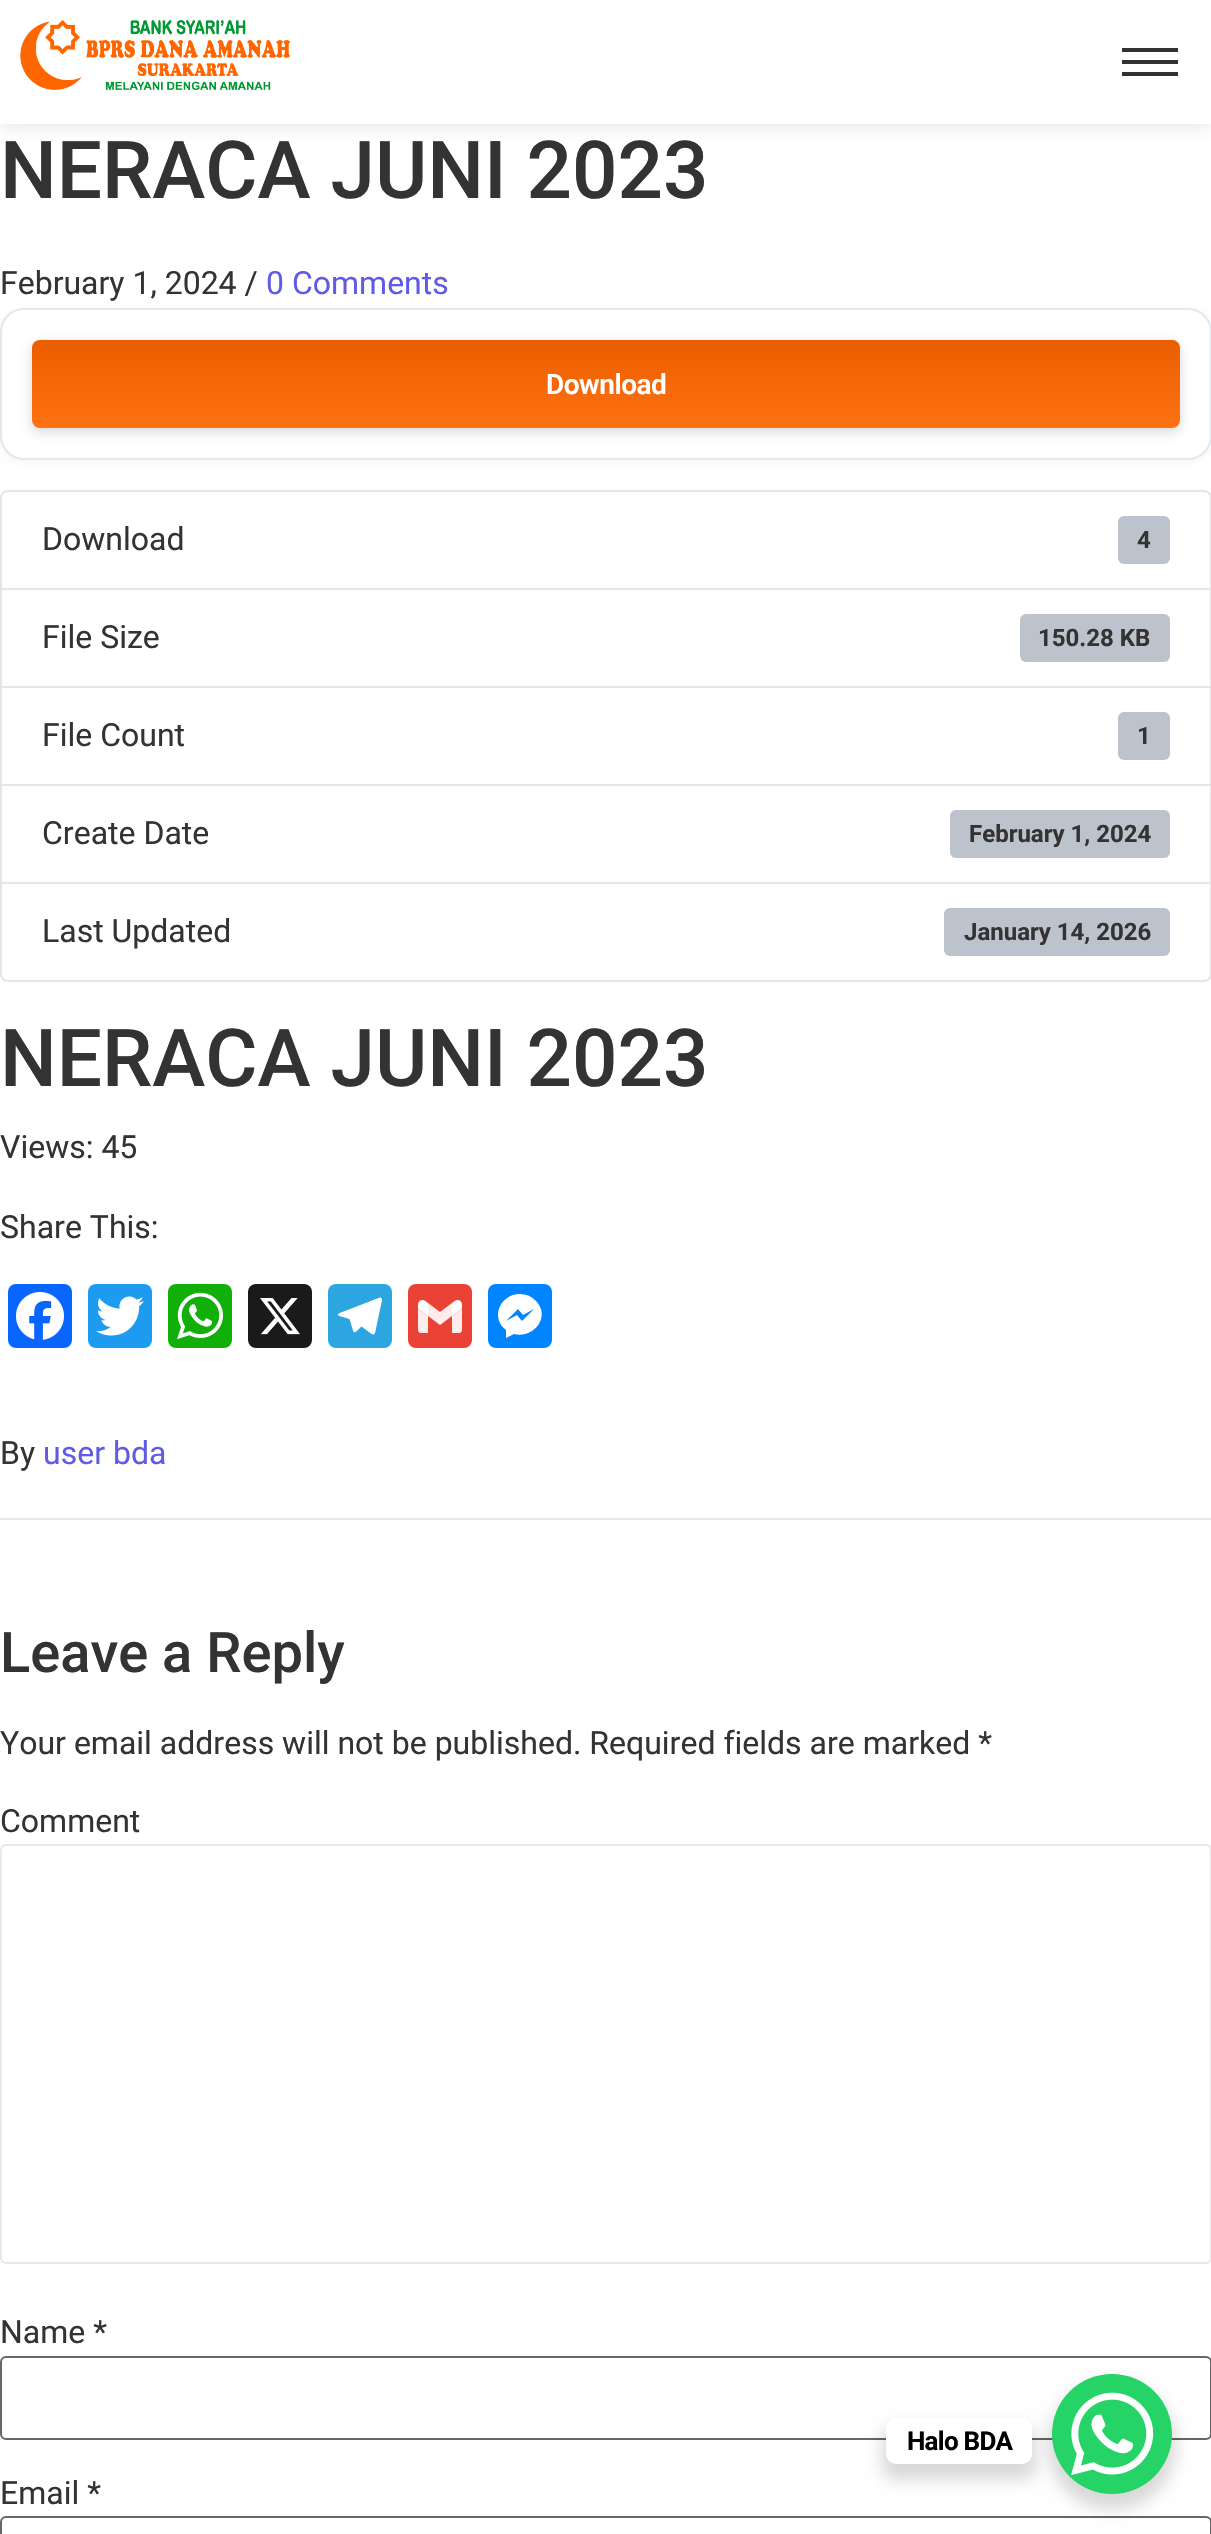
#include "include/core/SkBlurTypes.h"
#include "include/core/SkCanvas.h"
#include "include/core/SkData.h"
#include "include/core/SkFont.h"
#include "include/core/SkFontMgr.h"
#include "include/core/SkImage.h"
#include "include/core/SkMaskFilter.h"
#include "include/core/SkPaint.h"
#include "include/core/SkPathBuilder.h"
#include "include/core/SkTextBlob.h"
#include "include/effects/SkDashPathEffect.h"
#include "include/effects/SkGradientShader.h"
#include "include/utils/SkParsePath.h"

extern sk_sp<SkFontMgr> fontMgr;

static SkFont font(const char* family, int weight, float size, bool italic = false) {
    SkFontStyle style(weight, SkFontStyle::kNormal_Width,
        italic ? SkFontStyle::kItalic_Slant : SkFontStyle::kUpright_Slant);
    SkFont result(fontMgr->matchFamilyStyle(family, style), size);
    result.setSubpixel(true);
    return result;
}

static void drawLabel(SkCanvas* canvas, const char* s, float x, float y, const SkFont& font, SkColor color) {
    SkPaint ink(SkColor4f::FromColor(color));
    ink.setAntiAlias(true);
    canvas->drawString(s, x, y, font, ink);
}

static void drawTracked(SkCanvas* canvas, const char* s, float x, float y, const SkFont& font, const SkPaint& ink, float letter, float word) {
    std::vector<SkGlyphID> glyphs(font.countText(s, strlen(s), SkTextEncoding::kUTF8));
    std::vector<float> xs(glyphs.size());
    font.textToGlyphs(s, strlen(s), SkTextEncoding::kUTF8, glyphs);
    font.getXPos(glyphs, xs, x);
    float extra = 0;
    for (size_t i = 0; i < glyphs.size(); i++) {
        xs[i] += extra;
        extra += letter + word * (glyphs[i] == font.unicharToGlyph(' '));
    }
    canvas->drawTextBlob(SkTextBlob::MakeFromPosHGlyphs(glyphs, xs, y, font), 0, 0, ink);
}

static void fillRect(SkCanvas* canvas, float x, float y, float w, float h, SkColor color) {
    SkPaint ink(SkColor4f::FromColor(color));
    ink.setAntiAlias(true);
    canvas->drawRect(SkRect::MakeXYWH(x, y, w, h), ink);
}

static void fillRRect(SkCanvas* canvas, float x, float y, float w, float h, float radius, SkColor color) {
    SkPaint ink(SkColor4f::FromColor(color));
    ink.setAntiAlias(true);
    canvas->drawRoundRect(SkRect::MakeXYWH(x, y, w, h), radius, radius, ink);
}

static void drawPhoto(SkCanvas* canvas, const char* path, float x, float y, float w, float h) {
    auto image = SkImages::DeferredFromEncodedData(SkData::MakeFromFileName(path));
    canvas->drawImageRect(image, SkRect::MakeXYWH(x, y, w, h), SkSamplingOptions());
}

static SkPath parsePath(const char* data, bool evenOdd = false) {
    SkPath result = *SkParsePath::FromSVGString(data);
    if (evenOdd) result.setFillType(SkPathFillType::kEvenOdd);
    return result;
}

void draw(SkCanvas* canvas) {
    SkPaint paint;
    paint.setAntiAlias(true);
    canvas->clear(0xFFFFFFFF);
    canvas->save();
    canvas->clipRect(SkRect::MakeXYWH(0, 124, 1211, 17));
    paint.setColor(0x80BDBDBD);
    paint.setMaskFilter(SkMaskFilter::MakeBlur(kNormal_SkBlurStyle, 10));
    canvas->drawRect(SkRect::MakeXYWH(0, 0, 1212, 124), paint);
    paint.setMaskFilter(nullptr);
    canvas->restore();
    drawPhoto(canvas, "assets/img1.png", 20, 20, 270, 70);
    fillRect(canvas, 1122, 48, 56, 4, 0xFF333333);
    fillRect(canvas, 1122, 60, 56, 4, 0xFF333333);
    fillRect(canvas, 1122, 72, 56, 4, 0xFF333333);
    SkFont font1 = font("Roboto", 500, 80);
    drawLabel(canvas, "NERACA JUNI 2023", 0, 198, font1, 0xFF333333);
    SkFont font2 = font("Roboto", 400, 32);
    drawLabel(canvas, "February 1, 2024 /", 0, 294, font2, 0xFF333333);
    drawLabel(canvas, "0 Comments", 266, 294, font2, 0xFF605BE5);
    paint.setColor(0x0A000000);
    paint.setMaskFilter(SkMaskFilter::MakeBlur(kNormal_SkBlurStyle, 3));
    canvas->drawRoundRect(SkRect::MakeXYWH(0, 310, 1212, 152), 24, 24, paint);
    paint.setMaskFilter(nullptr);
    paint.setColor(0xFFFFFFFF);
    canvas->drawRoundRect(SkRect::MakeXYWH(1, 309, 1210, 150), 23, 23, paint);
    paint.setStroke(true);
    paint.setStrokeWidth(2);
    paint.setColor(0xFFE2E8F0);
    canvas->drawRoundRect(SkRect::MakeXYWH(1, 309, 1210, 150), 23, 23, paint);
    paint.setStroke(false);
    paint.setColor(0x26000000);
    paint.setMaskFilter(SkMaskFilter::MakeBlur(kNormal_SkBlurStyle, 6));
    canvas->drawRoundRect(SkRect::MakeXYWH(32, 344, 1148, 88), 8, 8, paint);
    paint.setMaskFilter(nullptr);
    fillRRect(canvas, 32, 340, 1148, 88, 8, 0xFFFF6600);
    {
        const SkColor colors[] = {0x14000000, 0x14FFFFFF};
        const float stops[] = {0, 1};
        const SkPoint ends[] = {{606, 340}, {606, 428}};
        paint.setShader(SkGradientShader::MakeLinear(ends, colors, stops, 2, SkTileMode::kClamp));
        paint.setAlpha(255);
    }
    canvas->drawRoundRect(SkRect::MakeXYWH(32, 340, 1148, 88), 8, 8, paint);
    SkFont font3 = font("Roboto", 600, 28);
    paint.setShader(nullptr);
    paint.setColor(0xFFFFFFFF);
    drawTracked(canvas, "Download", 546, 394, font3, paint, -0.5f, 0);
    paint.setStroke(true);
    paint.setColor(0xFFE5E5E5);
    canvas->drawPath(parsePath("M8 491H1204C1208 491 1211 494 1211 498V589H1V498C1 494 4 491 8 491Z"), paint);
    drawLabel(canvas, "Download", 42, 550, font2, 0xFF333333);
    fillRRect(canvas, 1118, 516, 52, 48, 6, 0xFFBCC3CC);
    SkFont font4 = font("Roboto", 700, 24);
    drawLabel(canvas, "4", 1137, 548, font4, 0xFF333333);
    canvas->drawRect(SkRect::MakeXYWH(1, 589, 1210, 98), paint);
    drawLabel(canvas, "File Size", 42, 648, font2, 0xFF333333);
    fillRRect(canvas, 1020, 614, 150, 48, 6, 0xFFBCC3CC);
    drawLabel(canvas, "150.28 KB", 1038, 646, font4, 0xFF333333);
    canvas->drawRect(SkRect::MakeXYWH(1, 687, 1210, 98), paint);
    drawLabel(canvas, "File Count", 42, 746, font2, 0xFF333333);
    fillRRect(canvas, 1118, 712, 52, 48, 6, 0xFFBCC3CC);
    drawLabel(canvas, "1", 1137, 744, font4, 0xFF333333);
    canvas->drawRect(SkRect::MakeXYWH(1, 785, 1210, 98), paint);
    drawLabel(canvas, "Create Date", 42, 844, font2, 0xFF333333);
    fillRRect(canvas, 950, 810, 220, 48, 6, 0xFFBCC3CC);
    drawLabel(canvas, "February 1, 2024", 969, 842, font4, 0xFF333333);
    paint.setStroke(false);
    paint.setColor(0xFFFFFFFF);
    canvas->drawPath(parsePath("M1 883H1211V974C1211 978 1208 981 1204 981H8C4 981 1 978 1 974Z"), paint);
    paint.setStroke(true);
    paint.setColor(0xFFE5E5E5);
    canvas->drawPath(parsePath("M1 883H1211V974C1211 978 1208 981 1204 981H8C4 981 1 978 1 974Z"), paint);
    drawLabel(canvas, "Last Updated", 42, 942, font2, 0xFF333333);
    fillRRect(canvas, 944, 908, 226, 48, 6, 0xFFBCC3CC);
    drawLabel(canvas, "January 14, 2026", 964, 940, font4, 0xFF333333);
    drawLabel(canvas, "NERACA JUNI 2023", 0, 1086, font1, 0xFF333333);
    drawLabel(canvas, "Views: 45", 0, 1158, font2, 0xFF333333);
    drawLabel(canvas, "Share This:", 0, 1238, font2, 0xFF333333);
    fillRRect(canvas, 8, 1284, 64, 64, 8, 0xFF0866FF);
    drawPhoto(canvas, "assets/img2.png", 16, 1292, 48, 48);
    fillRRect(canvas, 88, 1284, 64, 64, 8, 0xFF1D9BF0);
    drawPhoto(canvas, "assets/img3.png", 96, 1296, 48, 40);
    fillRRect(canvas, 168, 1284, 64, 64, 8, 0xFF12AF0A);
    drawPhoto(canvas, "assets/img4.png", 177, 1292, 46, 48);
    fillRRect(canvas, 248, 1284, 64, 64, 8, 0xFF1A1A1A);
    drawPhoto(canvas, "assets/img5.png", 260, 1298, 40, 37);
    fillRRect(canvas, 328, 1284, 64, 64, 8, 0xFF2CA5E0);
    drawPhoto(canvas, "assets/img6.png", 338, 1297, 44, 38);
    fillRRect(canvas, 408, 1284, 64, 64, 8, 0xFFEA4335);
    drawPhoto(canvas, "assets/img7.png", 418, 1300, 44, 33);
    fillRRect(canvas, 488, 1284, 64, 64, 8, 0xFF0084FF);
    paint.setStroke(false);
    paint.setColor(0xFFFFFFFF);
    canvas->drawPath(parsePath("M520 1294C500 1294 490 1318 506 1330V1338L514 1334C534 1339 552 1316 535 1300C531 1296 526 1294 520 1294M522 1321L517 1315L506 1321L518 1309L523 1315L534 1309Z"), paint);
    fillRect(canvas, 0, 1518, 1211, 2, 0xFFE8E8E8);
    drawLabel(canvas, "By", 0, 1464, font2, 0xFF333333);
    drawLabel(canvas, "user bda", 43, 1464, font2, 0xFF605BE5);
    SkFont font5 = font("Roboto", 500, 56);
    drawLabel(canvas, "Leave a Reply", 0, 1672, font5, 0xFF333333);
    drawLabel(canvas, "Your email address will not be published. Required fields are marked *", 0, 1754, font2, 0xFF333333);
    drawLabel(canvas, "Comment", 0, 1832, font2, 0xFF333333);
    paint.setStroke(true);
    paint.setColor(0xFFE8E8E8);
    canvas->drawRoundRect(SkRect::MakeXYWH(1, 1845, 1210, 418), 5, 5, paint);
    drawLabel(canvas, "Name *", 0, 2343, font2, 0xFF333333);
    paint.setColor(0xFF666666);
    canvas->drawRoundRect(SkRect::MakeXYWH(1, 2357, 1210, 82), 5, 5, paint);
    drawLabel(canvas, "Email *", 0, 2504, font2, 0xFF333333);
    canvas->drawRoundRect(SkRect::MakeXYWH(1, 2517, 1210, 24), 5, 5, paint);
    paint.setStroke(false);
    paint.setColor(0x26000000);
    paint.setMaskFilter(SkMaskFilter::MakeBlur(kNormal_SkBlurStyle, 8));
    canvas->drawRoundRect(SkRect::MakeXYWH(1048, 2382, 128, 128), 64, 64, paint);
    paint.setMaskFilter(nullptr);
    paint.setColor(0xFF25D366);
    canvas->drawCircle(1112, 2434, 60, paint);
    paint.setColor(0x26000000);
    paint.setMaskFilter(SkMaskFilter::MakeBlur(kNormal_SkBlurStyle, 8));
    canvas->drawRoundRect(SkRect::MakeXYWH(882, 2426, 154, 54), 14, 14, paint);
    paint.setMaskFilter(nullptr);
    fillRRect(canvas, 886, 2418, 146, 46, 10, 0xFFFFFFFF);
    SkFont font6 = font("Roboto", 700, 26);
    paint.setColor(0xFF000000);
    drawTracked(canvas, "Halo BDA", 907, 2450, font6, paint, -0.75f, 0);
    drawPhoto(canvas, "assets/img8.png", 1071, 2392, 83, 84);
}
